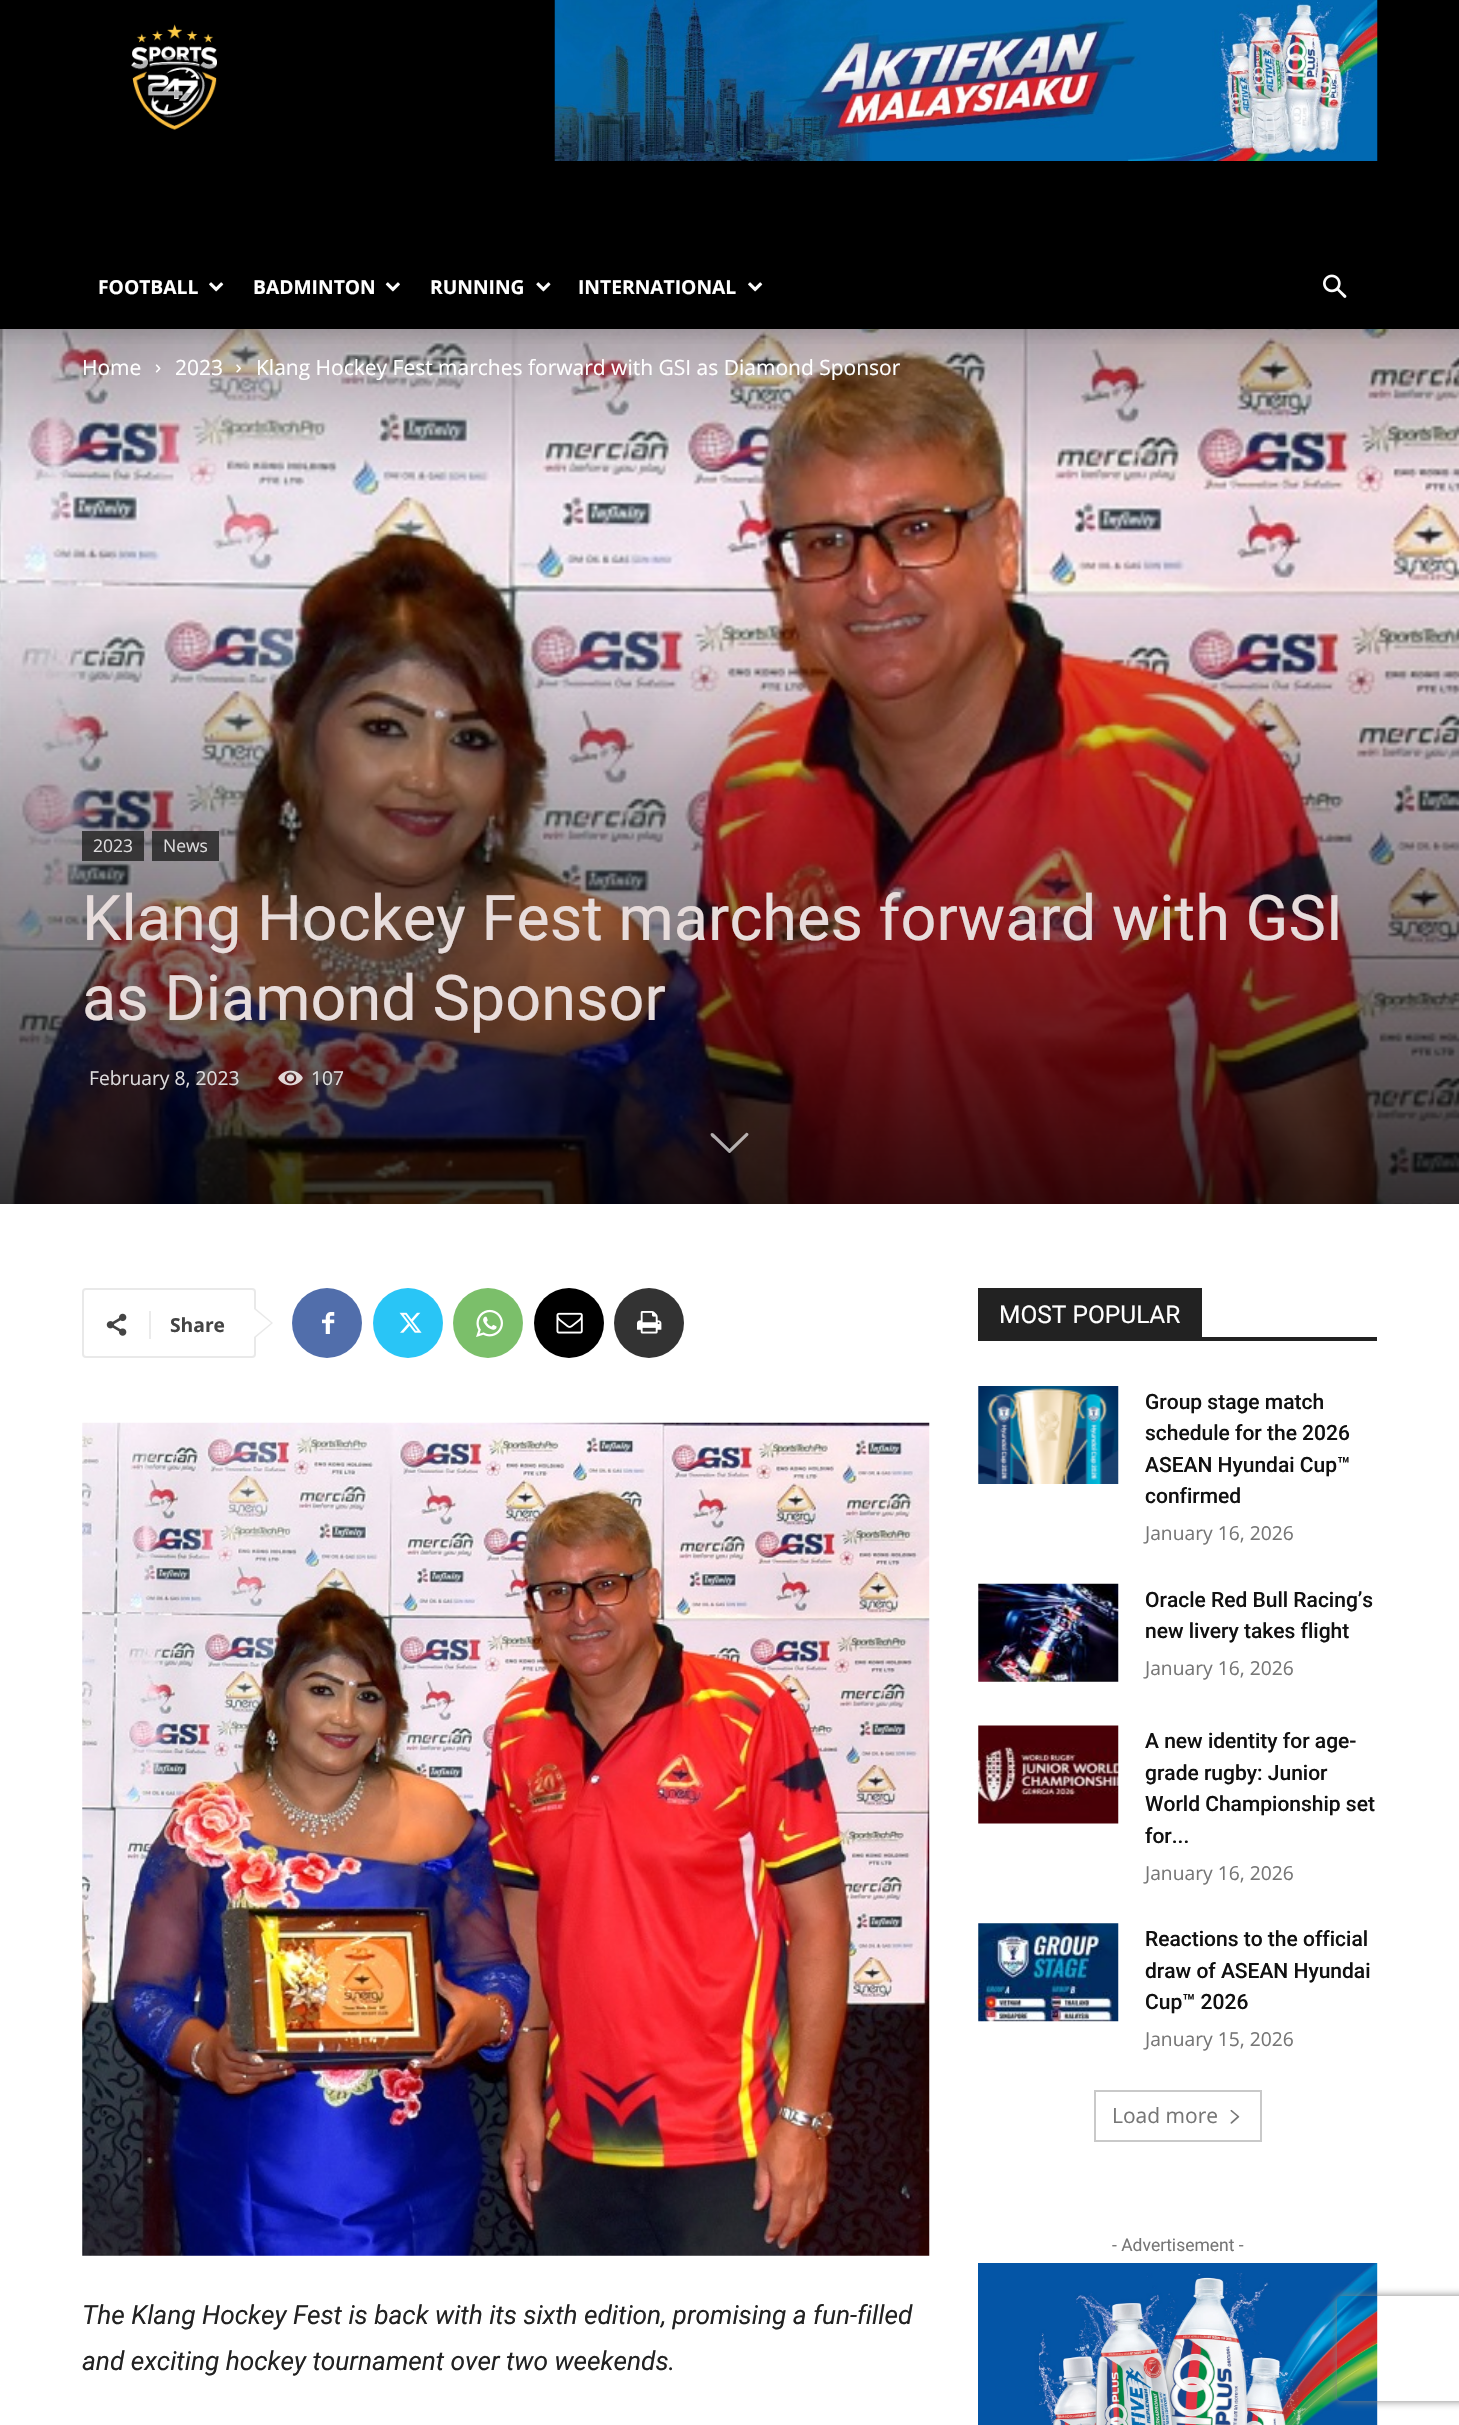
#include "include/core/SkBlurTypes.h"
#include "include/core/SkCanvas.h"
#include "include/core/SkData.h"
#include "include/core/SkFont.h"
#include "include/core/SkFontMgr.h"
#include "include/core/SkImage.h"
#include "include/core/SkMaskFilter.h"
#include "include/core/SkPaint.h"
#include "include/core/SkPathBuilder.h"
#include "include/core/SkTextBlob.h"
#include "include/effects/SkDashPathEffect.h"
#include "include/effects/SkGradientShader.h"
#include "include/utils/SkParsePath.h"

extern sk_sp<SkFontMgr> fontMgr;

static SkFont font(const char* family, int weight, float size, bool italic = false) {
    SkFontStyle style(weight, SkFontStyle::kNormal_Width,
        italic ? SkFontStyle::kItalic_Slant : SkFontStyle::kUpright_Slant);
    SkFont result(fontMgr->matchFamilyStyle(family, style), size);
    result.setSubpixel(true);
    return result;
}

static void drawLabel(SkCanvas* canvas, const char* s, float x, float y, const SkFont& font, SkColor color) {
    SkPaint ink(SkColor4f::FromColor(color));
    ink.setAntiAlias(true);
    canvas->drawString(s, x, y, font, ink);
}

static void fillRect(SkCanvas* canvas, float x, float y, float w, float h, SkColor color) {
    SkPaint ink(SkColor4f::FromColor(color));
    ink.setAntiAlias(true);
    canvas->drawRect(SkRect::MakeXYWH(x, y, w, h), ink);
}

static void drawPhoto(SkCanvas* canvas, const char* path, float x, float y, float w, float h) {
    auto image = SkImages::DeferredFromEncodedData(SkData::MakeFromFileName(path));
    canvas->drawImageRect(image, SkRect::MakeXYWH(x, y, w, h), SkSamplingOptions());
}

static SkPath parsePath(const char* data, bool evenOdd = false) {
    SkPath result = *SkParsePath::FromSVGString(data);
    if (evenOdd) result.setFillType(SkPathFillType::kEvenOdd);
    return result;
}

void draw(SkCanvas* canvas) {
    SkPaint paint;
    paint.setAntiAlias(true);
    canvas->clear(0xFFFFFFFF);
    fillRect(canvas, 0, 0, 1459, 329, 0xFF000000);
    drawPhoto(canvas, "assets/img1.png", 131, 24, 86, 106);
    drawPhoto(canvas, "assets/img2.png", 554, 0, 824, 161);
    SkFont font1 = font("Open Sans", 700, 19.25f);
    drawLabel(canvas, "FOOTBALL", 98, 294, font1, 0xFFFFFFFF);
    drawPhoto(canvas, "assets/img3.png", 209, 282, 15, 10);
    drawLabel(canvas, "BADMINTON", 253, 294, font1, 0xFFFFFFFF);
    drawPhoto(canvas, "assets/img4.png", 385, 282, 15, 10);
    drawLabel(canvas, "RUNNING", 430, 294, font1, 0xFFFFFFFF);
    drawPhoto(canvas, "assets/img5.png", 536, 282, 15, 10);
    drawLabel(canvas, "INTERNATIONAL", 578, 294, font1, 0xFFFFFFFF);
    drawPhoto(canvas, "assets/img3.png", 748, 282, 15, 10);
    drawPhoto(canvas, "assets/img6.png", 1323, 274, 24, 24);
    drawPhoto(canvas, "assets/img8.png", 0, 329, 1459, 875);
    drawPhoto(canvas, "assets/img7.png", 0, 329, 1459, 15);
    SkFont font2 = font("Open Sans", 400, 21);
    drawLabel(canvas, "Home", 82, 375, font2, 0xFFFFFFFF);
    drawPhoto(canvas, "assets/img9.png", 155, 364, 6, 9);
    drawLabel(canvas, "2023", 175, 375, font2, 0xFFFFFFFF);
    drawPhoto(canvas, "assets/img10.png", 236, 364, 5, 9);
    drawLabel(canvas, "Klang Hockey Fest marches forward with GSI as Diamond Sponsor", 256, 375, font2, 0xFFFFFFFF);
    fillRect(canvas, 82, 831, 62, 30, 0xD1222222);
    SkFont font3 = font("Open Sans", 400, 17.5f);
    drawLabel(canvas, "2023", 93, 852, font3, 0xFFDCDBDC);
    fillRect(canvas, 152, 831, 67, 30, 0xD1222222);
    drawLabel(canvas, "News", 163, 852, font3, 0xFFDCDBDC);
    SkFont font4 = font("Roboto", 400, 63);
    drawLabel(canvas, "Klang Hockey Fest marches forward with GSI", 82, 940, font4, 0xFFE7DCDB);
    drawLabel(canvas, "as Diamond Sponsor", 82, 1020, font4, 0xFFE7DCDB);
    SkFont font5 = font("Open Sans", 400, 19.25f);
    drawLabel(canvas, "February 8, 2023", 89, 1085, font5, 0xFFDCDBDC);
    drawPhoto(canvas, "assets/img11.png", 278, 1070, 25, 16);
    drawLabel(canvas, "107", 311, 1085, font5, 0xFFDCDBDC);
    paint.setColor(0xA8FFFFFF);
    canvas->drawPath(parsePath("M713.5 1133.5L729.5 1149L746 1133C747 1132.5 748.5 1133.5 748.5 1134.5L748 1135.5L730 1153H729L714 1138.5C713.5 1138.5 708 1134 712 1133Z"), paint);
    paint.setStroke(true);
    paint.setStrokeWidth(2);
    paint.setColor(0xFFE9E9E9);
    canvas->drawRoundRect(SkRect::MakeXYWH(83, 1289, 172, 68), 3, 3, paint);
    paint.setStroke(false);
    canvas->drawPath(parsePath("M254 1339V1307L273 1323Z"), paint);
    drawPhoto(canvas, "assets/img12.png", 106, 1313, 21, 23);
    fillRect(canvas, 149, 1311, 2, 28, 0xFFEBEBEB);
    drawLabel(canvas, "Share", 170, 1332, font1, 0xFF444444);
    paint.setColor(0xFFFFFFFF);
    canvas->drawPath(parsePath("M254 1337V1309L271 1323Z"), paint);
    paint.setColor(0xFF516EAB);
    canvas->drawCircle(327, 1323, 35, paint);
    drawPhoto(canvas, "assets/img13.png", 322, 1312, 13, 22);
    paint.setColor(0xFF29C5F6);
    canvas->drawCircle(408, 1323, 35, paint);
    drawPhoto(canvas, "assets/img14.png", 399, 1312, 23, 21);
    paint.setColor(0xFF7BBF6A);
    canvas->drawCircle(488, 1323, 35, paint);
    drawPhoto(canvas, "assets/img15.png", 476, 1309, 27, 28);
    paint.setColor(0xFF000000);
    canvas->drawCircle(569, 1323, 35, paint);
    drawPhoto(canvas, "assets/img16.png", 556, 1312, 27, 22);
    paint.setColor(0xFF333333);
    canvas->drawCircle(649, 1323, 35, paint);
    drawPhoto(canvas, "assets/img17.png", 637, 1311, 25, 23);
    drawPhoto(canvas, "assets/img18.png", 82, 1422, 848, 834);
    SkFont font6 = font("Roboto", 400, 26.25f, true);
    drawLabel(canvas, "The Klang Hockey Fest is back with its sixth edition, promising a fun-filled", 82, 2324, font6, 0xFF222222);
    drawLabel(canvas, "and exciting hockey tournament over two weekends.", 82, 2370, font6, 0xFF222222);
    fillRect(canvas, 978, 1337, 399, 4, 0xFF222222);
    fillRect(canvas, 978, 1288, 224, 49, 0xFF222222);
    SkFont font7 = font("Roboto", 400, 24.5f);
    drawLabel(canvas, "MOST POPULAR", 999, 1323, font7, 0xFFFFFFFF);
    drawPhoto(canvas, "assets/img19.png", 978, 1386, 141, 98);
    SkFont font8 = font("Roboto", 500, 21);
    drawLabel(canvas, "Group stage match", 1145, 1409, font8, 0xFF111111);
    drawLabel(canvas, "schedule for the 2026", 1145, 1440, font8, 0xFF111111);
    drawLabel(canvas, "ASEAN Hyundai Cup™", 1145, 1472, font8, 0xFF111111);
    drawLabel(canvas, "confirmed", 1145, 1503, font8, 0xFF111111);
    drawLabel(canvas, "January 16, 2026", 1145, 1540, font5, 0xFF767676);
    drawPhoto(canvas, "assets/img20.png", 978, 1583, 141, 99);
    drawLabel(canvas, "Oracle Red Bull Racing’s", 1145, 1607, font8, 0xFF111111);
    drawLabel(canvas, "new livery takes flight", 1145, 1638, font8, 0xFF111111);
    drawLabel(canvas, "January 16, 2026", 1145, 1675, font5, 0xFF767676);
    drawPhoto(canvas, "assets/img21.png", 978, 1725, 141, 99);
    drawLabel(canvas, "A new identity for age-", 1145, 1748, font8, 0xFF111111);
    drawLabel(canvas, "grade rugby: Junior", 1145, 1780, font8, 0xFF111111);
    drawLabel(canvas, "World Championship set", 1145, 1811, font8, 0xFF111111);
    drawLabel(canvas, "for...", 1145, 1843, font8, 0xFF111111);
    drawLabel(canvas, "January 16, 2026", 1145, 1880, font5, 0xFF767676);
    drawPhoto(canvas, "assets/img22.png", 978, 1923, 141, 99);
    drawLabel(canvas, "Reactions to the official", 1145, 1946, font8, 0xFF111111);
    drawLabel(canvas, "draw of ASEAN Hyundai", 1145, 1978, font8, 0xFF111111);
    drawLabel(canvas, "Cup™ 2026", 1145, 2009, font8, 0xFF111111);
    drawLabel(canvas, "January 15, 2026", 1145, 2046, font5, 0xFF767676);
    paint.setStroke(true);
    paint.setColor(0xFFC9C9C9);
    canvas->drawRect(SkRect::MakeXYWH(1095, 2091, 166, 50), paint);
    drawLabel(canvas, "Load more", 1112, 2123, font2, 0xFF767676);
    drawPhoto(canvas, "assets/img23.png", 1230, 2109, 10, 15);
    SkFont font9 = font("Roboto", 400, 17.5f);
    drawLabel(canvas, "- Advertisement -", 1112, 2251, font9, 0xFF767676);
    drawPhoto(canvas, "assets/img24.png", 978, 2263, 400, 162);
    canvas->save();
    canvas->clipPath(parsePath("M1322 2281H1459V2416H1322ZM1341 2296H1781C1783 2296 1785 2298 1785 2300V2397C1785 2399 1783 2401 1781 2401H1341C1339 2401 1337 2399 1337 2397V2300C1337 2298 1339 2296 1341 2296Z", true), true);
    paint.setStroke(false);
    paint.setColor(0xFF808080);
    paint.setMaskFilter(SkMaskFilter::MakeBlur(kNormal_SkBlurStyle, 4.5f));
    canvas->drawRoundRect(SkRect::MakeXYWH(1337, 2296, 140, 105), 4, 4, paint);
    paint.setMaskFilter(nullptr);
    canvas->restore();
}
